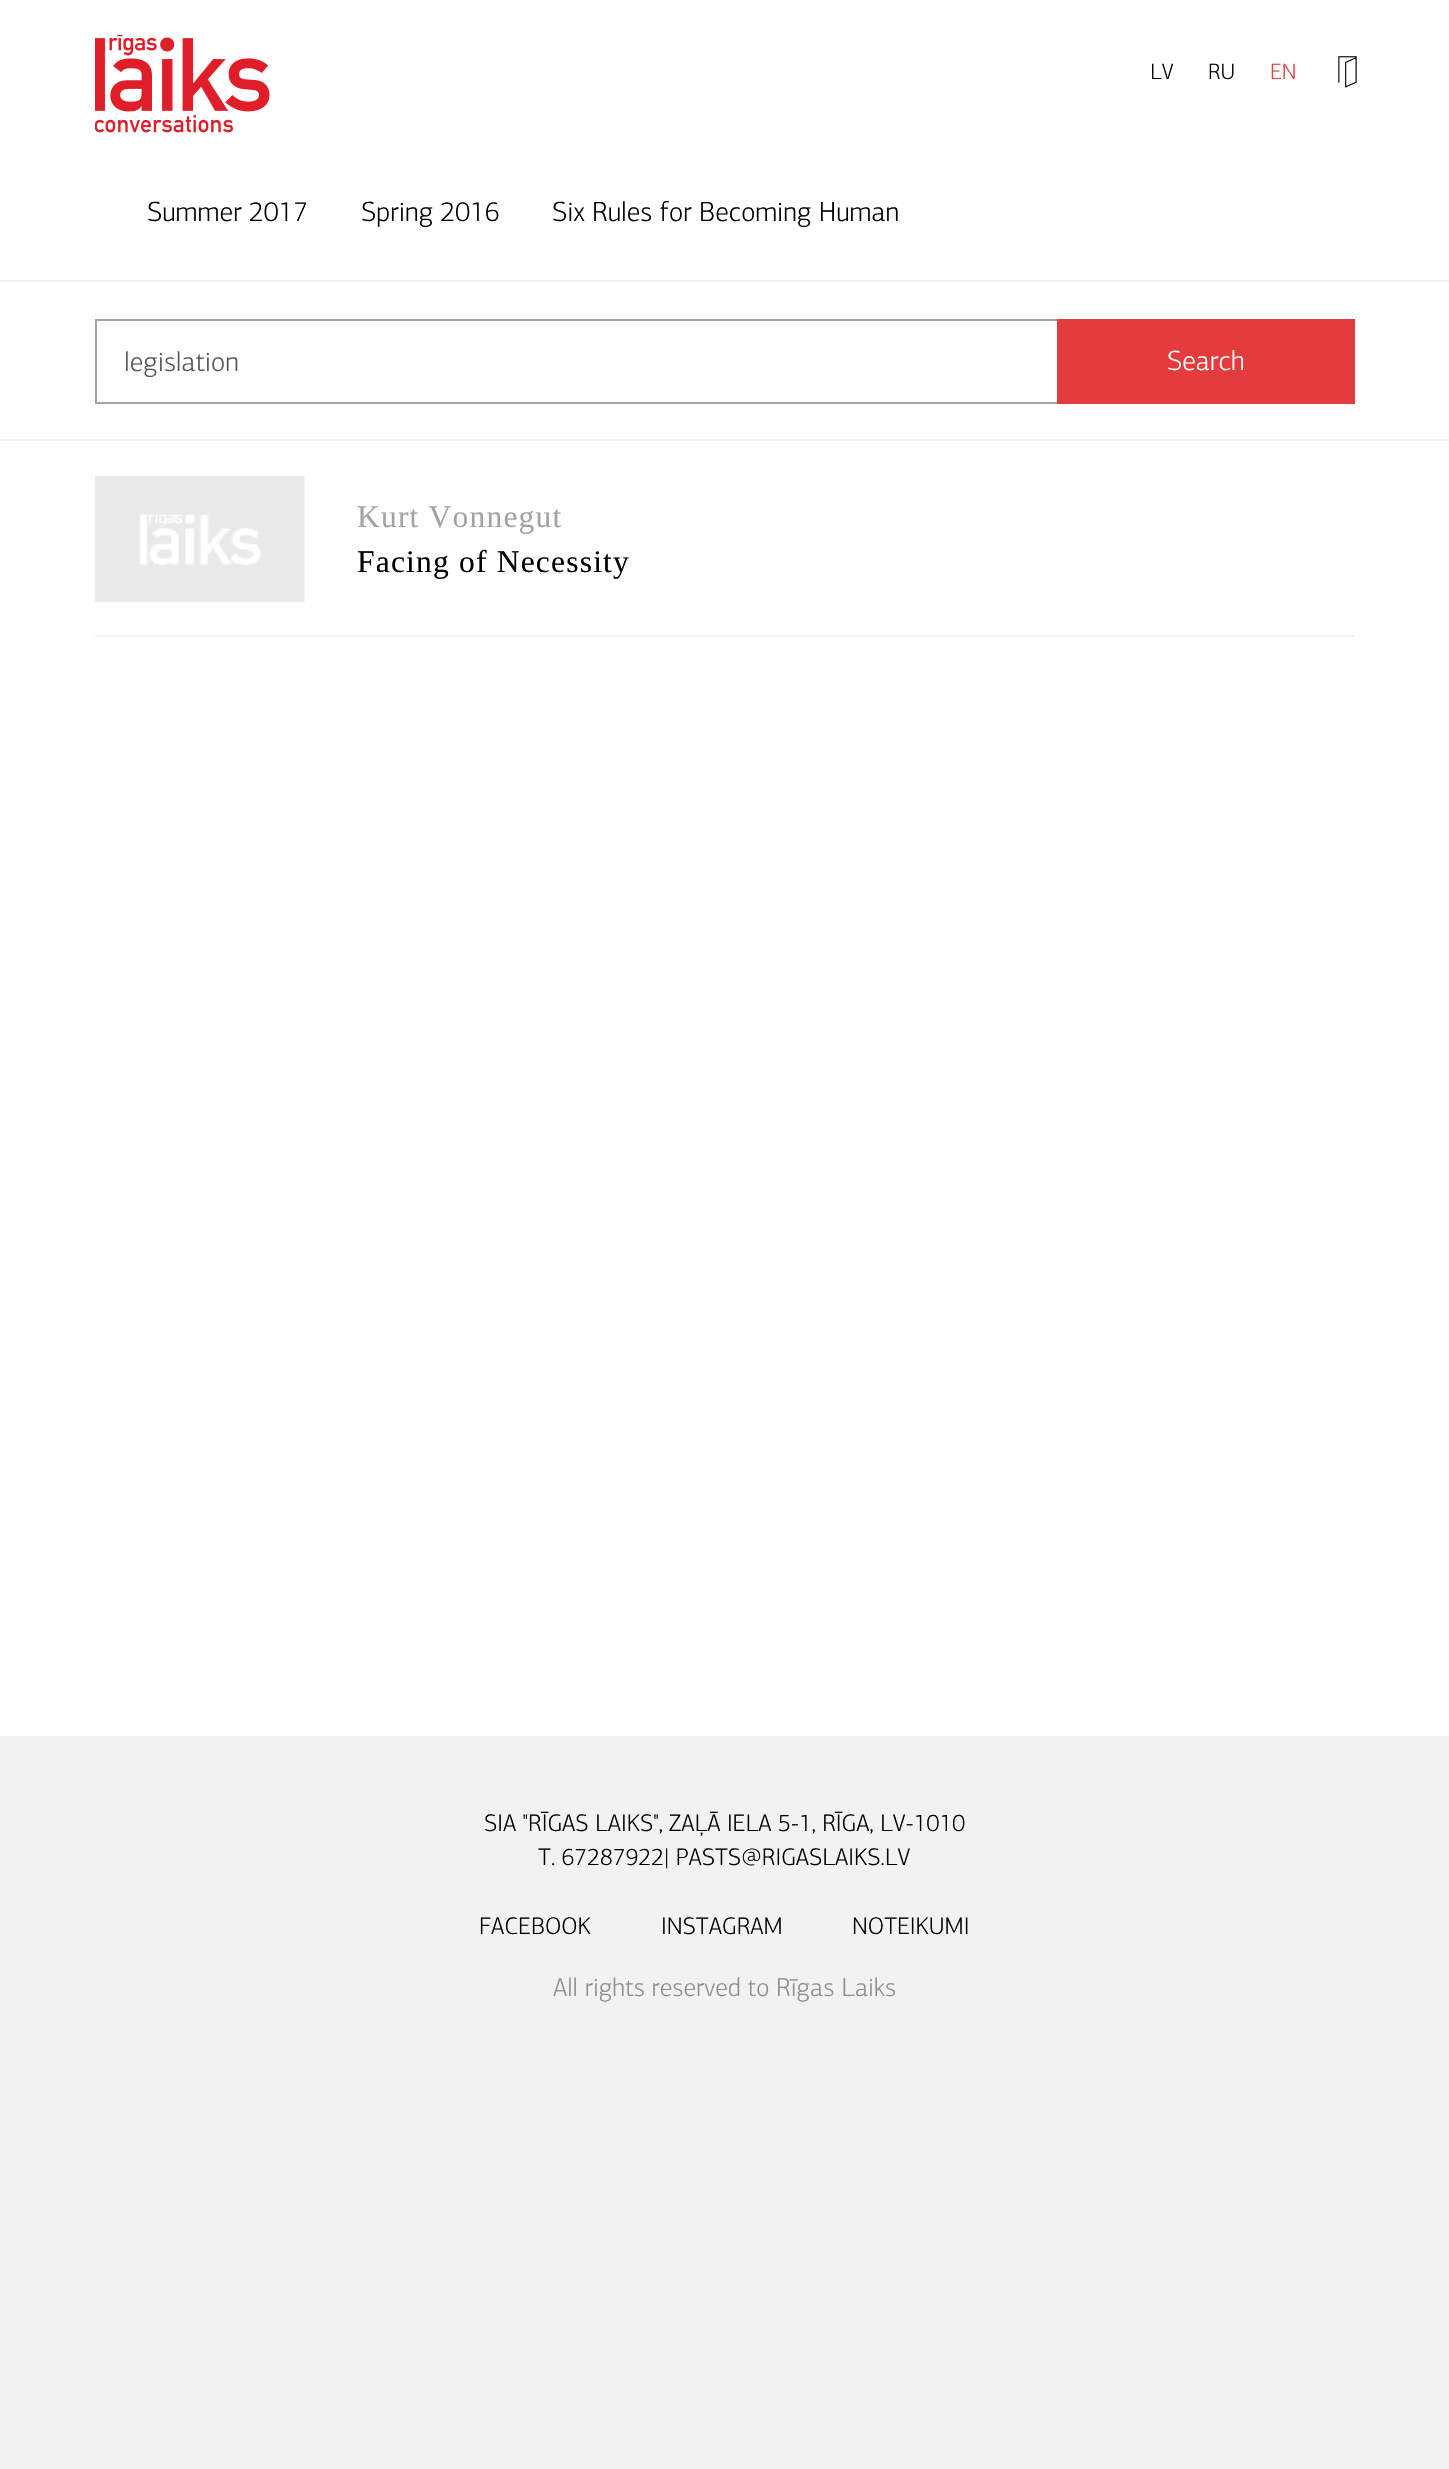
#include "include/core/SkBlurTypes.h"
#include "include/core/SkCanvas.h"
#include "include/core/SkData.h"
#include "include/core/SkFont.h"
#include "include/core/SkFontMgr.h"
#include "include/core/SkImage.h"
#include "include/core/SkMaskFilter.h"
#include "include/core/SkPaint.h"
#include "include/core/SkPathBuilder.h"
#include "include/core/SkTextBlob.h"
#include "include/effects/SkDashPathEffect.h"
#include "include/effects/SkGradientShader.h"
#include "include/utils/SkParsePath.h"

extern sk_sp<SkFontMgr> fontMgr;

static SkFont font(const char* family, int weight, float size, bool italic = false) {
    SkFontStyle style(weight, SkFontStyle::kNormal_Width,
        italic ? SkFontStyle::kItalic_Slant : SkFontStyle::kUpright_Slant);
    SkFont result(fontMgr->matchFamilyStyle(family, style), size);
    result.setSubpixel(true);
    return result;
}

static void drawLabel(SkCanvas* canvas, const char* s, float x, float y, const SkFont& font, SkColor color) {
    SkPaint ink(SkColor4f::FromColor(color));
    ink.setAntiAlias(true);
    canvas->drawString(s, x, y, font, ink);
}

static void drawTracked(SkCanvas* canvas, const char* s, float x, float y, const SkFont& font, const SkPaint& ink, float letter, float word) {
    std::vector<SkGlyphID> glyphs(font.countText(s, strlen(s), SkTextEncoding::kUTF8));
    std::vector<float> xs(glyphs.size());
    font.textToGlyphs(s, strlen(s), SkTextEncoding::kUTF8, glyphs);
    font.getXPos(glyphs, xs, x);
    float extra = 0;
    for (size_t i = 0; i < glyphs.size(); i++) {
        xs[i] += extra;
        extra += letter + word * (glyphs[i] == font.unicharToGlyph(' '));
    }
    canvas->drawTextBlob(SkTextBlob::MakeFromPosHGlyphs(glyphs, xs, y, font), 0, 0, ink);
}

static void fillRect(SkCanvas* canvas, float x, float y, float w, float h, SkColor color) {
    SkPaint ink(SkColor4f::FromColor(color));
    ink.setAntiAlias(true);
    canvas->drawRect(SkRect::MakeXYWH(x, y, w, h), ink);
}

static void drawPhoto(SkCanvas* canvas, const char* path, float x, float y, float w, float h) {
    auto image = SkImages::DeferredFromEncodedData(SkData::MakeFromFileName(path));
    canvas->drawImageRect(image, SkRect::MakeXYWH(x, y, w, h), SkSamplingOptions());
}

void draw(SkCanvas* canvas) {
    SkPaint paint;
    paint.setAntiAlias(true);
    canvas->clear(0xFFF1F2F2);
    fillRect(canvas, 0, 0, 1449, 280, 0xFFFFFFFF);
    drawPhoto(canvas, "assets/img1.png", 95, 35, 175, 98);
    SkFont font1 = font("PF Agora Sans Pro", 300, 21);
    drawLabel(canvas, "LV", 1150, 79, font1, 0xFF000000);
    drawLabel(canvas, "RU", 1208, 79, font1, 0xFF000000);
    drawLabel(canvas, "EN", 1270, 79, font1, 0xFFE33B3E);
    drawPhoto(canvas, "assets/img2.png", 1338, 56, 19, 32);
    SkFont font2 = font("PF Agora Sans Pro", 300, 26.25f);
    drawLabel(canvas, "Summer 2017", 147, 221, font2, 0xFF000000);
    drawLabel(canvas, "Spring 2016", 361, 221, font2, 0xFF000000);
    drawLabel(canvas, "Six Rules for Becoming Human", 552, 221, font2, 0xFF000000);
    fillRect(canvas, 0, 282, 1449, 157, 0xFFFFFFFF);
    paint.setStroke(true);
    paint.setStrokeWidth(2);
    paint.setColor(0xFFA1A3A6);
    canvas->drawRect(SkRect::MakeXYWH(96, 320, 962, 83), paint);
    drawLabel(canvas, "legislation", 124, 371, font2, 0xFF555555);
    fillRect(canvas, 1057, 319, 298, 85, 0xFFE33B3E);
    drawLabel(canvas, "Search", 1167, 370, font2, 0xFFFFFFFF);
    fillRect(canvas, 0, 441, 1449, 1295, 0xFFFFFFFF);
    drawPhoto(canvas, "assets/img3.png", 94, 476, 211, 126);
    SkFont font3 = font("Tinos", 400, 31.5f);
    paint.setStroke(false);
    drawTracked(canvas, "Kurt Vonnegut", 357, 527, font3, paint, 1.2f, 0);
    paint.setColor(0xFF000000);
    drawTracked(canvas, "Facing of Necessity", 357, 572, font3, paint, 1.2f, 0);
    fillRect(canvas, 95, 635, 1260, 2, 0xFFF1F2F2);
    SkFont font4 = font("PF Agora Sans Pro", 300, 22.75f);
    drawLabel(canvas, "SIA \"RĪGAS LAIKS\", ZAĻĀ IELA 5-1, RĪGA, LV-1010", 484, 1831, font4, 0xFF000000);
    drawLabel(canvas, "T. 67287922| PASTS@RIGASLAIKS.LV", 538, 1865, font4, 0xFF000000);
    drawLabel(canvas, "FACEBOOK", 479, 1934, font4, 0xFF000000);
    drawLabel(canvas, "INSTAGRAM", 661, 1934, font4, 0xFF000000);
    drawLabel(canvas, "NOTEIKUMI", 852, 1934, font4, 0xFF000000);
    SkFont font5 = font("PF Agora Sans Pro", 300, 24.5f);
    drawLabel(canvas, "All rights reserved to Rīgas Laiks", 553, 1996, font5, 0xFF8B8D90);
}
